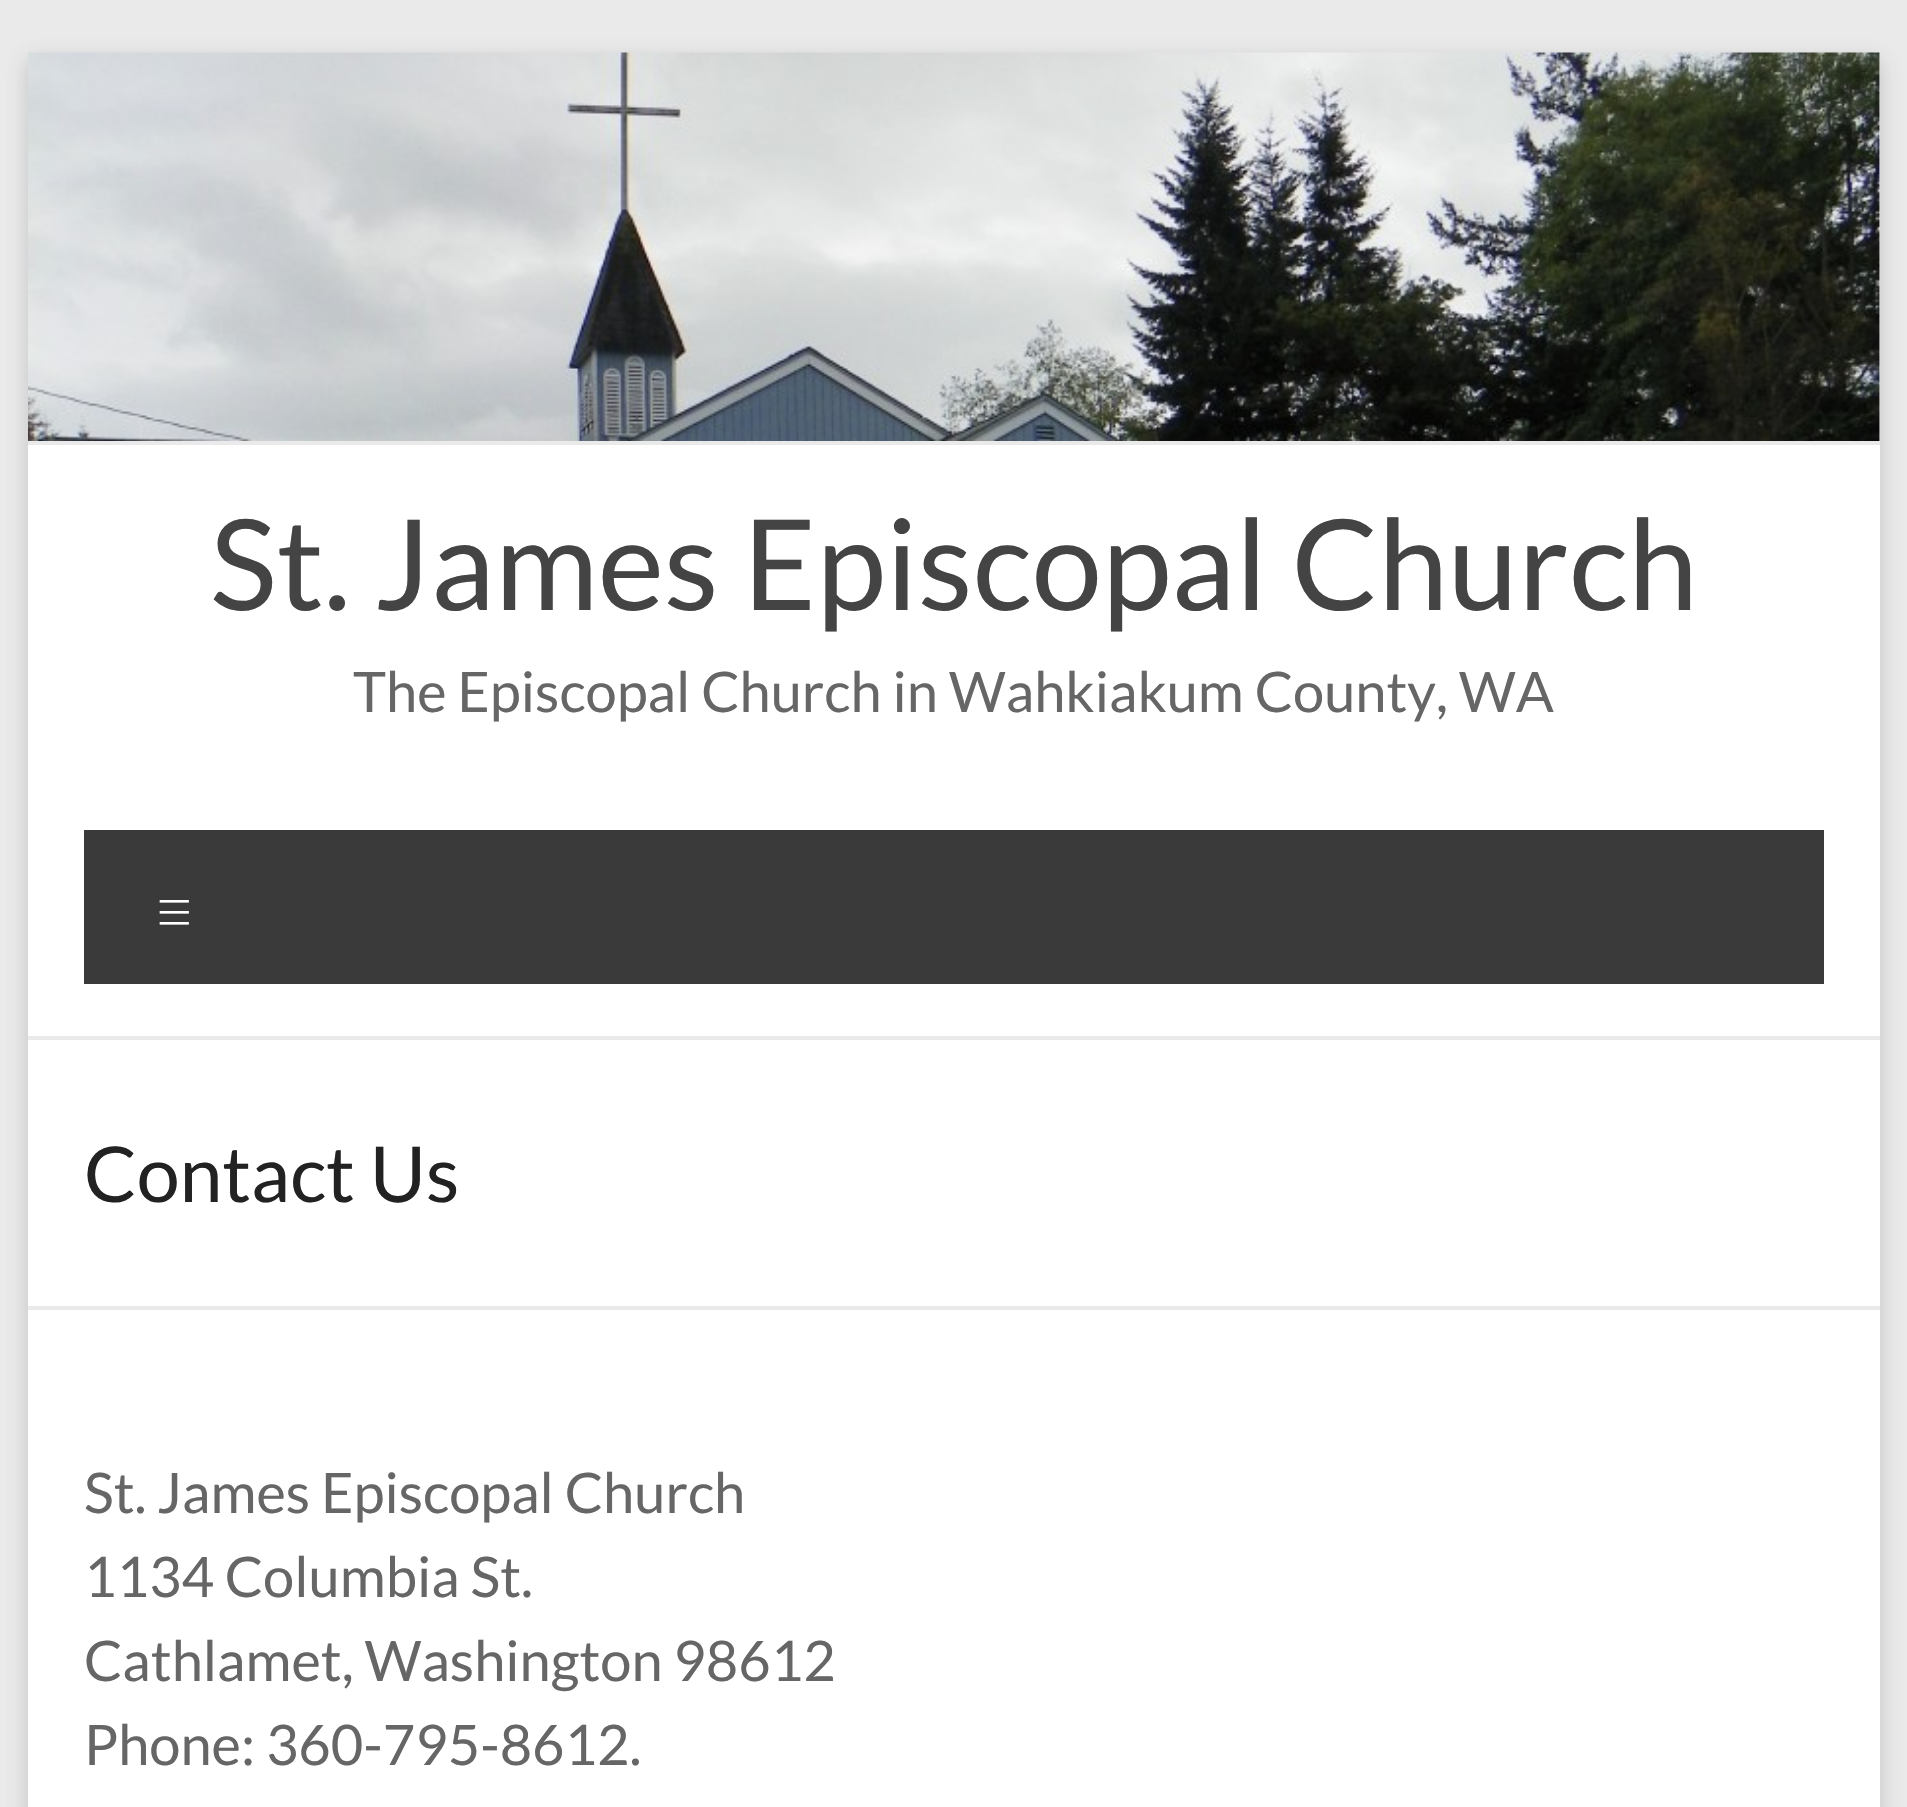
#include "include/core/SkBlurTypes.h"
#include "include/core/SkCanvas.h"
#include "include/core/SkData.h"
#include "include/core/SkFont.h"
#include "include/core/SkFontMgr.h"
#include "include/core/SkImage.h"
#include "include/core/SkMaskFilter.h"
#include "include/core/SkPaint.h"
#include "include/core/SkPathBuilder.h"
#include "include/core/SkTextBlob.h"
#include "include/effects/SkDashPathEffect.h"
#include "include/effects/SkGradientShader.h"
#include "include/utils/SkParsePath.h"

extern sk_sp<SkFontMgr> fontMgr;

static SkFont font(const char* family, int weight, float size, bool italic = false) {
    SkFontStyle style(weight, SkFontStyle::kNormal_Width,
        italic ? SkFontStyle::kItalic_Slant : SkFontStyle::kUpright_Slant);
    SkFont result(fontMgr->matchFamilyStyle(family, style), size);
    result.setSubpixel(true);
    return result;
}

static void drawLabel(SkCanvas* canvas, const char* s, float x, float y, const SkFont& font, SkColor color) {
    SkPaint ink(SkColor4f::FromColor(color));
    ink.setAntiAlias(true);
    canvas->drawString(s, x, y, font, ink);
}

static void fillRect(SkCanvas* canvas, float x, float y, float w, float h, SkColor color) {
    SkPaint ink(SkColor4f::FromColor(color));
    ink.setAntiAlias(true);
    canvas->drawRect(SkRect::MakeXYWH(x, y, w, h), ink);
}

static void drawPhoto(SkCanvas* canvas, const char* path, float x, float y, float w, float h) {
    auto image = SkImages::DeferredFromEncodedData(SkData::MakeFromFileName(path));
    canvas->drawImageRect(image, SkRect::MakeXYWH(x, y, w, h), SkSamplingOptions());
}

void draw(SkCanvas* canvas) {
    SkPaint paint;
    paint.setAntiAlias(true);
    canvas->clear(0xFFEAEAEA);
    paint.setColor(0x4D646464);
    paint.setMaskFilter(SkMaskFilter::MakeBlur(kNormal_SkBlurStyle, 10.5f));
    canvas->drawRect(SkRect::MakeXYWH(28, 60, 1852, 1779), paint);
    paint.setMaskFilter(nullptr);
    fillRect(canvas, 28, 53, 1852, 1754, 0xFFFFFFFF);
    drawPhoto(canvas, "assets/img1.png", 28, 52, 1852, 389);
    fillRect(canvas, 28, 441, 1852, 4, 0xFFEAEAEA);
    fillRect(canvas, 28, 1036, 1852, 4, 0xFFEAEAEA);
    SkFont font1 = font("Lato", 400, 126);
    drawLabel(canvas, "St. James Episcopal Church", 210, 610, font1, 0xFF444444);
    SkFont font2 = font("Lato", 400, 56);
    drawLabel(canvas, "The Episcopal Church in Wahkiakum County, WA", 353, 712, font2, 0xFF666666);
    fillRect(canvas, 84, 830, 1740, 154, 0xFF3A3A3A);
    SkFont font3 = font("Lato", 300, 70);
    drawLabel(canvas, "≡", 154, 936, font3, 0xFFFFFFFF);
    fillRect(canvas, 28, 1306, 1852, 4, 0xFFEAEAEA);
    SkFont font4 = font("Lato", 400, 77);
    drawLabel(canvas, "Contact Us", 84, 1202, font4, 0xFF222222);
    drawLabel(canvas, "St. James Episcopal Church", 84, 1513, font2, 0xFF666666);
    drawLabel(canvas, "1134 Columbia St.", 84, 1597, font2, 0xFF666666);
    drawLabel(canvas, "Cathlamet, Washington 98612", 84, 1681, font2, 0xFF666666);
    drawLabel(canvas, "Phone: 360-795-8612.", 84, 1765, font2, 0xFF666666);
}
